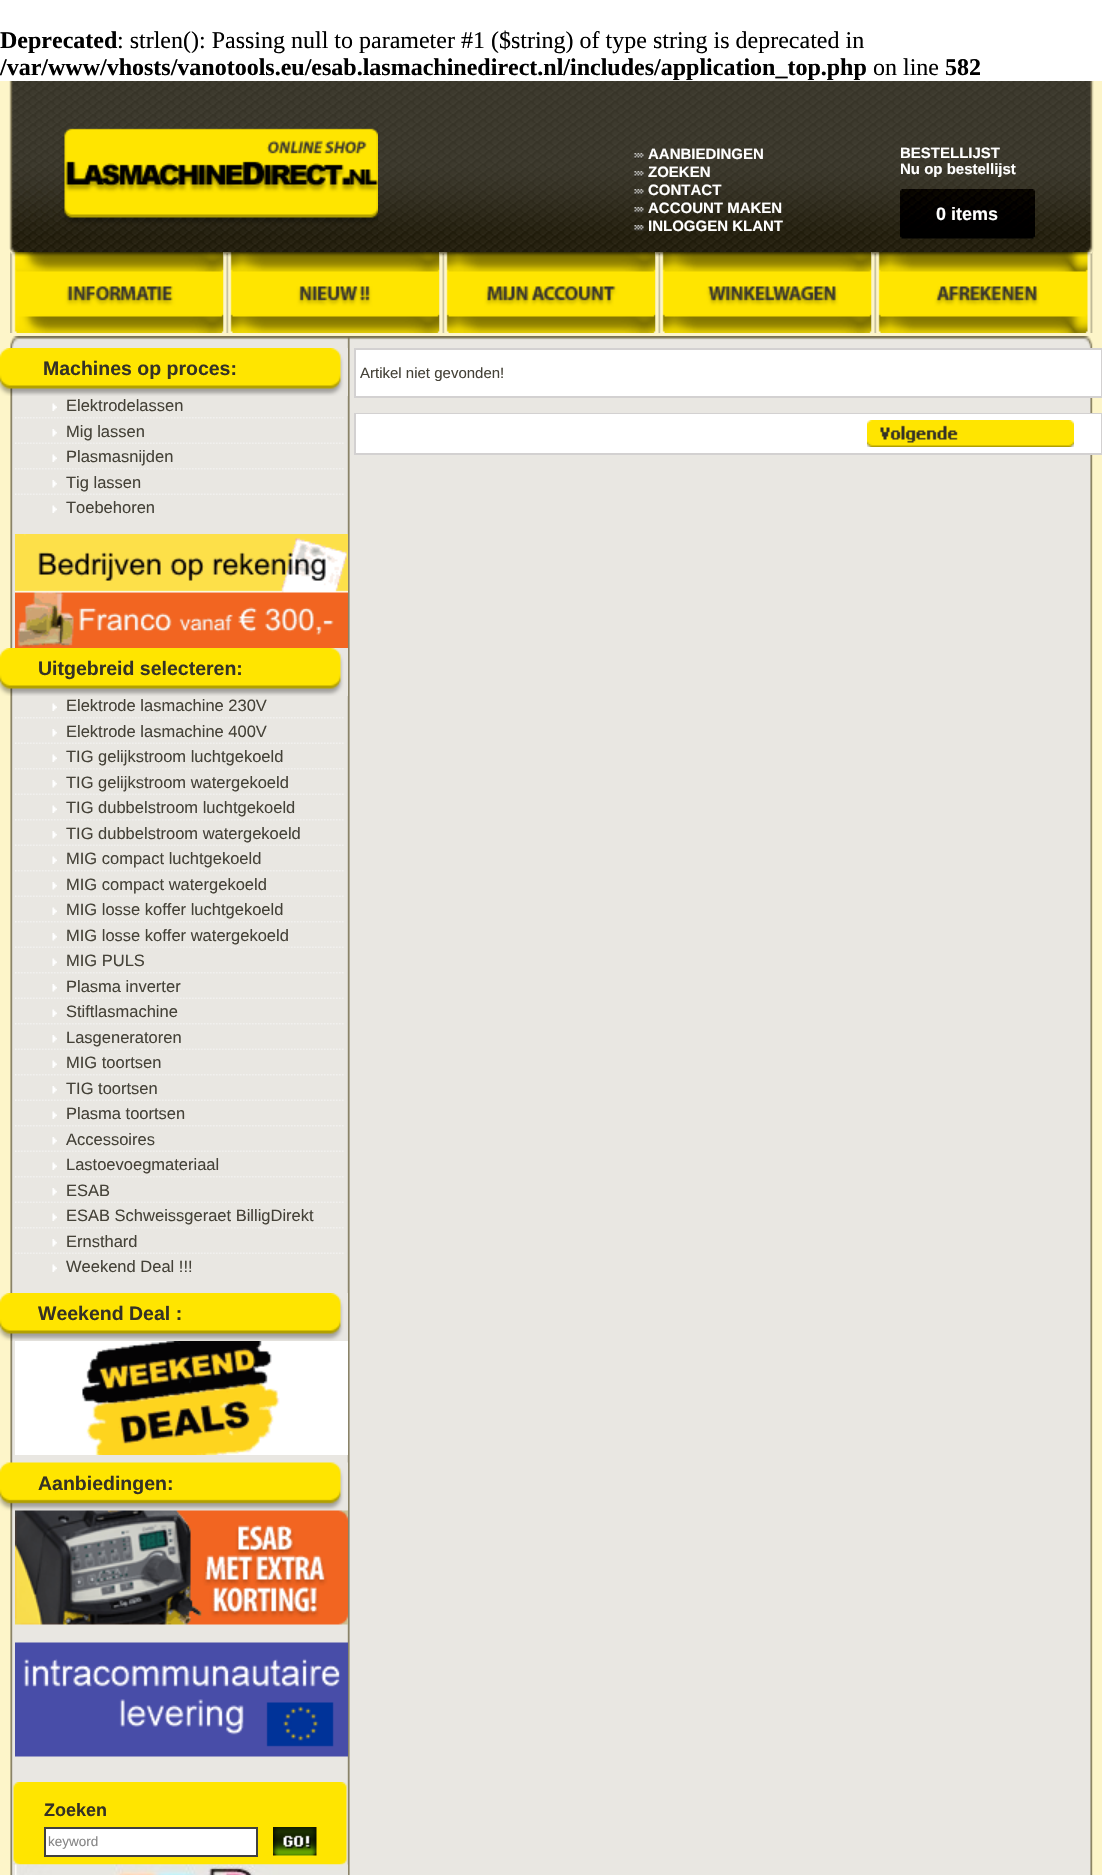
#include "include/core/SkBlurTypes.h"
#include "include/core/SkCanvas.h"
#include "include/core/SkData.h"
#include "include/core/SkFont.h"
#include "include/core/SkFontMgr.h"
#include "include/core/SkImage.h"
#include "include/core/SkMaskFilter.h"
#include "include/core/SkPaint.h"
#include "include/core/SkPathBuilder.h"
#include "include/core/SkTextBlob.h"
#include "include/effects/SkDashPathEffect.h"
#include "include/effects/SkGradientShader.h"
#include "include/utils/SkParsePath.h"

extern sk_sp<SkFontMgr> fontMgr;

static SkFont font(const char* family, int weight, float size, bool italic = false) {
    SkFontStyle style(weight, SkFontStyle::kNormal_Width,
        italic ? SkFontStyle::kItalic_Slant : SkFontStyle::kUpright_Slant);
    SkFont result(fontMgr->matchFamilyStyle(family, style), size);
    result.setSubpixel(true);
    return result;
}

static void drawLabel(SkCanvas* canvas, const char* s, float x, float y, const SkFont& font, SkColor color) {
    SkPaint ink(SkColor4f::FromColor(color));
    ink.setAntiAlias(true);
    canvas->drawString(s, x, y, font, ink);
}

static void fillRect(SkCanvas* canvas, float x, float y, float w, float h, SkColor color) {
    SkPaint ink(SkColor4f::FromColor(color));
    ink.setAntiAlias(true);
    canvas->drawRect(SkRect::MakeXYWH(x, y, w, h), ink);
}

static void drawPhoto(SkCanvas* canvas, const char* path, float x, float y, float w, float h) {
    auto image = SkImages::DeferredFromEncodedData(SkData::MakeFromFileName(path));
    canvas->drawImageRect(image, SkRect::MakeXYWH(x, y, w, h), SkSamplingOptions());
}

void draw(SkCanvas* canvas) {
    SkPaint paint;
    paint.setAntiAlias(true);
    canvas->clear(0xFFFFFFFF);
    SkFont font1 = font("Liberation Serif", 700, 24);
    drawLabel(canvas, "Deprecated", 0, 48, font1, 0xFF000000);
    SkFont font2 = font("Liberation Serif", 400, 24);
    drawLabel(canvas, ": strlen(): Passing null to parameter #1 ($string) of type string is deprecated in", 117, 48, font2, 0xFF000000);
    drawLabel(canvas, "/var/www/vhosts/vanotools.eu/esab.lasmachinedirect.nl/includes/application_top.php", 0, 75, font1, 0xFF000000);
    drawLabel(canvas, "on line", 873, 75, font2, 0xFF000000);
    drawLabel(canvas, "582", 945, 75, font1, 0xFF000000);
    drawPhoto(canvas, "assets/img1.png", 0, 81, 1102, 1794);
    drawPhoto(canvas, "assets/img2.png", 9, 81, 369, 171);
    drawPhoto(canvas, "assets/img3.png", 378, 81, 708, 171);
    drawPhoto(canvas, "assets/img4.png", 634, 153, 10, 6);
    SkFont font3 = font("Liberation Sans", 700, 15);
    drawLabel(canvas, "AANBIEDINGEN", 648, 159, font3, 0xFFFFFFFF);
    drawPhoto(canvas, "assets/img5.png", 634, 171, 10, 6);
    drawLabel(canvas, "ZOEKEN", 648, 177, font3, 0xFFFFFFFF);
    drawPhoto(canvas, "assets/img6.png", 634, 189, 10, 6);
    drawLabel(canvas, "CONTACT", 648, 195, font3, 0xFFFFFFFF);
    drawPhoto(canvas, "assets/img7.png", 634, 207, 10, 6);
    drawLabel(canvas, "ACCOUNT MAKEN", 648, 213, font3, 0xFFFFFFFF);
    drawPhoto(canvas, "assets/img8.png", 634, 225, 10, 6);
    drawLabel(canvas, "INLOGGEN KLANT", 648, 231, font3, 0xFFFFFFFF);
    drawLabel(canvas, "BESTELLIJST", 900, 158, font3, 0xFFFFFFFF);
    drawLabel(canvas, "Nu op bestellijst", 900, 174, font3, 0xFFFFFFFF);
    drawPhoto(canvas, "assets/img9.png", 900, 189, 135, 50);
    SkFont font4 = font("Liberation Sans", 700, 18);
    drawLabel(canvas, "0 items", 936, 220, font4, 0xFFFFFFFF);
    drawPhoto(canvas, "assets/img10.png", 1086, 81, 8, 171);
    drawPhoto(canvas, "assets/img11.png", 10, 252, 214, 81);
    drawPhoto(canvas, "assets/img12.png", 223, 252, 217, 81);
    drawPhoto(canvas, "assets/img13.png", 439, 252, 217, 81);
    drawPhoto(canvas, "assets/img14.png", 655, 252, 217, 81);
    drawPhoto(canvas, "assets/img15.png", 871, 252, 221, 81);
    fillRect(canvas, 10, 333, 1083, 3, 0xFFFDF5C9);
    drawPhoto(canvas, "assets/img16.png", 10, 336, 1083, 12);
    drawPhoto(canvas, "assets/img17.png", 0, 348, 348, 48);
    SkFont font5 = font("Liberation Sans", 700, 19.5f);
    drawLabel(canvas, "Machines op proces:", 43, 375, font5, 0xFF353225);
    drawPhoto(canvas, "assets/img18.png", 52, 403, 5, 8);
    SkFont font6 = font("Liberation Sans", 400, 16.5f);
    drawLabel(canvas, "Elektrodelassen", 66, 411, font6, 0xFF454238);
    drawPhoto(canvas, "assets/img19.png", 15, 417, 329, 2);
    drawPhoto(canvas, "assets/img20.png", 52, 429, 5, 8);
    drawLabel(canvas, "Mig lassen", 66, 437, font6, 0xFF454238);
    drawPhoto(canvas, "assets/img21.png", 15, 442, 329, 2);
    drawPhoto(canvas, "assets/img18.png", 52, 454, 5, 8);
    drawLabel(canvas, "Plasmasnijden", 66, 462, font6, 0xFF454238);
    drawPhoto(canvas, "assets/img19.png", 15, 468, 329, 2);
    drawPhoto(canvas, "assets/img20.png", 52, 480, 5, 8);
    drawLabel(canvas, "Tig lassen", 66, 488, font6, 0xFF454238);
    drawPhoto(canvas, "assets/img21.png", 15, 493, 329, 2);
    drawPhoto(canvas, "assets/img18.png", 52, 505, 5, 8);
    drawLabel(canvas, "Toebehoren", 66, 513, font6, 0xFF454238);
    drawPhoto(canvas, "assets/img22.png", 15, 534, 333, 114);
    drawPhoto(canvas, "assets/img17.png", 0, 648, 348, 48);
    drawLabel(canvas, "Uitgebreid selecteren:", 38, 675, font5, 0xFF353225);
    drawPhoto(canvas, "assets/img18.png", 52, 703, 5, 8);
    drawLabel(canvas, "Elektrode lasmachine 230V", 66, 711, font6, 0xFF454238);
    drawPhoto(canvas, "assets/img19.png", 15, 717, 329, 2);
    drawPhoto(canvas, "assets/img20.png", 52, 729, 5, 8);
    drawLabel(canvas, "Elektrode lasmachine 400V", 66, 737, font6, 0xFF454238);
    drawPhoto(canvas, "assets/img21.png", 15, 742, 329, 2);
    drawPhoto(canvas, "assets/img18.png", 52, 754, 5, 8);
    drawLabel(canvas, "TIG gelijkstroom luchtgekoeld", 66, 762, font6, 0xFF454238);
    drawPhoto(canvas, "assets/img19.png", 15, 768, 329, 2);
    drawPhoto(canvas, "assets/img20.png", 52, 780, 5, 8);
    drawLabel(canvas, "TIG gelijkstroom watergekoeld", 66, 788, font6, 0xFF454238);
    drawPhoto(canvas, "assets/img21.png", 15, 793, 329, 2);
    drawPhoto(canvas, "assets/img18.png", 52, 805, 5, 8);
    drawLabel(canvas, "TIG dubbelstroom luchtgekoeld", 66, 813, font6, 0xFF454238);
    drawPhoto(canvas, "assets/img19.png", 15, 819, 329, 2);
    drawPhoto(canvas, "assets/img20.png", 52, 831, 5, 8);
    drawLabel(canvas, "TIG dubbelstroom watergekoeld", 66, 839, font6, 0xFF454238);
    drawPhoto(canvas, "assets/img21.png", 15, 844, 329, 2);
    drawPhoto(canvas, "assets/img18.png", 52, 856, 5, 8);
    drawLabel(canvas, "MIG compact luchtgekoeld", 66, 864, font6, 0xFF454238);
    drawPhoto(canvas, "assets/img19.png", 15, 870, 329, 2);
    drawPhoto(canvas, "assets/img20.png", 52, 882, 5, 8);
    drawLabel(canvas, "MIG compact watergekoeld", 66, 890, font6, 0xFF454238);
    drawPhoto(canvas, "assets/img21.png", 15, 895, 329, 2);
    drawPhoto(canvas, "assets/img18.png", 52, 907, 5, 8);
    drawLabel(canvas, "MIG losse koffer luchtgekoeld", 66, 915, font6, 0xFF454238);
    drawPhoto(canvas, "assets/img19.png", 15, 921, 329, 2);
    drawPhoto(canvas, "assets/img20.png", 52, 933, 5, 8);
    drawLabel(canvas, "MIG losse koffer watergekoeld", 66, 941, font6, 0xFF454238);
    drawPhoto(canvas, "assets/img21.png", 15, 946, 329, 2);
    drawPhoto(canvas, "assets/img18.png", 52, 958, 5, 8);
    drawLabel(canvas, "MIG PULS", 66, 966, font6, 0xFF454238);
    drawPhoto(canvas, "assets/img19.png", 15, 972, 329, 2);
    drawPhoto(canvas, "assets/img20.png", 52, 984, 5, 8);
    drawLabel(canvas, "Plasma inverter", 66, 992, font6, 0xFF454238);
    drawPhoto(canvas, "assets/img21.png", 15, 997, 329, 2);
    drawPhoto(canvas, "assets/img18.png", 52, 1009, 5, 8);
    drawLabel(canvas, "Stiftlasmachine", 66, 1017, font6, 0xFF454238);
    drawPhoto(canvas, "assets/img19.png", 15, 1023, 329, 2);
    drawPhoto(canvas, "assets/img20.png", 52, 1035, 5, 8);
    drawLabel(canvas, "Lasgeneratoren", 66, 1043, font6, 0xFF454238);
    drawPhoto(canvas, "assets/img21.png", 15, 1048, 329, 2);
    drawPhoto(canvas, "assets/img18.png", 52, 1060, 5, 8);
    drawLabel(canvas, "MIG toortsen", 66, 1068, font6, 0xFF454238);
    drawPhoto(canvas, "assets/img19.png", 15, 1074, 329, 2);
    drawPhoto(canvas, "assets/img20.png", 52, 1086, 5, 8);
    drawLabel(canvas, "TIG toortsen", 66, 1094, font6, 0xFF454238);
    drawPhoto(canvas, "assets/img21.png", 15, 1099, 329, 2);
    drawPhoto(canvas, "assets/img18.png", 52, 1111, 5, 8);
    drawLabel(canvas, "Plasma toortsen", 66, 1119, font6, 0xFF454238);
    drawPhoto(canvas, "assets/img19.png", 15, 1125, 329, 2);
    drawPhoto(canvas, "assets/img20.png", 52, 1137, 5, 8);
    drawLabel(canvas, "Accessoires", 66, 1145, font6, 0xFF454238);
    drawPhoto(canvas, "assets/img21.png", 15, 1150, 329, 2);
    drawPhoto(canvas, "assets/img18.png", 52, 1162, 5, 8);
    drawLabel(canvas, "Lastoevoegmateriaal", 66, 1170, font6, 0xFF454238);
    drawPhoto(canvas, "assets/img19.png", 15, 1176, 329, 2);
    drawPhoto(canvas, "assets/img20.png", 52, 1188, 5, 8);
    drawLabel(canvas, "ESAB", 66, 1196, font6, 0xFF454238);
    drawPhoto(canvas, "assets/img21.png", 15, 1201, 329, 2);
    drawPhoto(canvas, "assets/img18.png", 52, 1213, 5, 8);
    drawLabel(canvas, "ESAB Schweissgeraet BilligDirekt", 66, 1221, font6, 0xFF454238);
    drawPhoto(canvas, "assets/img19.png", 15, 1227, 329, 2);
    drawPhoto(canvas, "assets/img20.png", 52, 1239, 5, 8);
    drawLabel(canvas, "Ernsthard", 66, 1247, font6, 0xFF454238);
    drawPhoto(canvas, "assets/img21.png", 15, 1252, 329, 2);
    drawPhoto(canvas, "assets/img18.png", 52, 1264, 5, 8);
    drawLabel(canvas, "Weekend Deal !!!", 66, 1272, font6, 0xFF454238);
    drawPhoto(canvas, "assets/img17.png", 0, 1293, 348, 48);
    drawLabel(canvas, "Weekend Deal :", 38, 1320, font5, 0xFF353225);
    drawPhoto(canvas, "assets/img23.png", 15, 1341, 333, 114);
    drawPhoto(canvas, "assets/img24.png", 0, 1462, 348, 49);
    drawLabel(canvas, "Aanbiedingen:", 38, 1490, font5, 0xFF353225);
    drawPhoto(canvas, "assets/img25.png", 15, 1510, 333, 115);
    drawPhoto(canvas, "assets/img26.png", 15, 1642, 333, 115);
    drawPhoto(canvas, "assets/img27.png", 13, 1782, 334, 83);
    drawLabel(canvas, "Zoeken", 44, 1816, font4, 0xFF353225);
    paint.setColor(0xFFFFFFFF);
    canvas->drawRect(SkRect::MakeXYWH(45, 1828, 212, 28), paint);
    paint.setStroke(true);
    paint.setStrokeWidth(2);
    paint.setColor(0xFF404040);
    canvas->drawRect(SkRect::MakeXYWH(45, 1828, 212, 28), paint);
    SkFont font7 = font("Liberation Sans", 400, 13.5f);
    drawLabel(canvas, "keyword", 48, 1846, font7, 0xFF858585);
    drawPhoto(canvas, "assets/img28.png", 273, 1827, 44, 29);
    drawPhoto(canvas, "assets/img29.png", 15, 1864, 333, 11);
    fillRect(canvas, 354, 348, 748, 50, 0xFFD3D1D1);
    fillRect(canvas, 356, 350, 745, 46, 0xFFFFFFFF);
    SkFont font8 = font("Liberation Sans", 400, 15);
    drawLabel(canvas, "Artikel niet gevonden!", 360, 378, font8, 0xFF454238);
    fillRect(canvas, 354, 413, 748, 42, 0xFFD3D1D1);
    fillRect(canvas, 356, 414, 745, 39, 0xFFFFFFFF);
    drawPhoto(canvas, "assets/img30.png", 867, 420, 207, 27);
}
